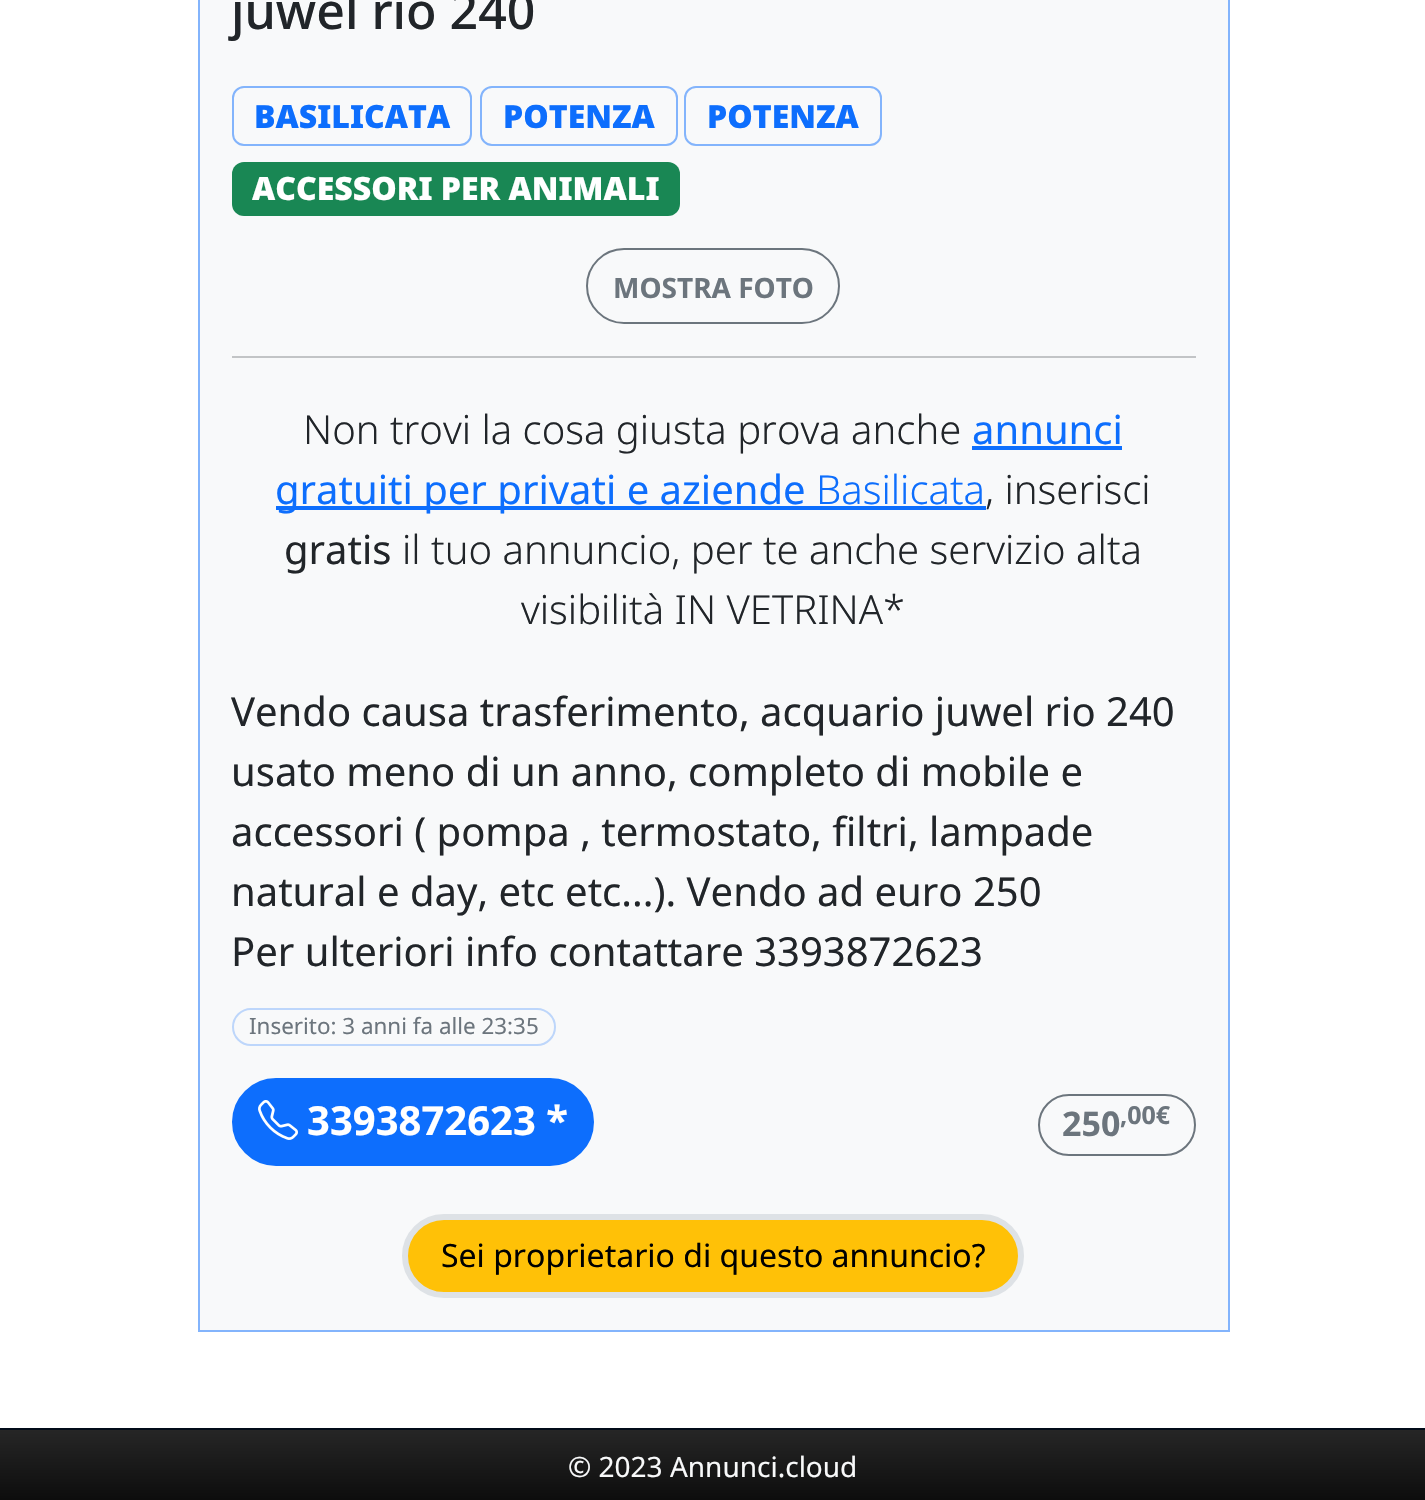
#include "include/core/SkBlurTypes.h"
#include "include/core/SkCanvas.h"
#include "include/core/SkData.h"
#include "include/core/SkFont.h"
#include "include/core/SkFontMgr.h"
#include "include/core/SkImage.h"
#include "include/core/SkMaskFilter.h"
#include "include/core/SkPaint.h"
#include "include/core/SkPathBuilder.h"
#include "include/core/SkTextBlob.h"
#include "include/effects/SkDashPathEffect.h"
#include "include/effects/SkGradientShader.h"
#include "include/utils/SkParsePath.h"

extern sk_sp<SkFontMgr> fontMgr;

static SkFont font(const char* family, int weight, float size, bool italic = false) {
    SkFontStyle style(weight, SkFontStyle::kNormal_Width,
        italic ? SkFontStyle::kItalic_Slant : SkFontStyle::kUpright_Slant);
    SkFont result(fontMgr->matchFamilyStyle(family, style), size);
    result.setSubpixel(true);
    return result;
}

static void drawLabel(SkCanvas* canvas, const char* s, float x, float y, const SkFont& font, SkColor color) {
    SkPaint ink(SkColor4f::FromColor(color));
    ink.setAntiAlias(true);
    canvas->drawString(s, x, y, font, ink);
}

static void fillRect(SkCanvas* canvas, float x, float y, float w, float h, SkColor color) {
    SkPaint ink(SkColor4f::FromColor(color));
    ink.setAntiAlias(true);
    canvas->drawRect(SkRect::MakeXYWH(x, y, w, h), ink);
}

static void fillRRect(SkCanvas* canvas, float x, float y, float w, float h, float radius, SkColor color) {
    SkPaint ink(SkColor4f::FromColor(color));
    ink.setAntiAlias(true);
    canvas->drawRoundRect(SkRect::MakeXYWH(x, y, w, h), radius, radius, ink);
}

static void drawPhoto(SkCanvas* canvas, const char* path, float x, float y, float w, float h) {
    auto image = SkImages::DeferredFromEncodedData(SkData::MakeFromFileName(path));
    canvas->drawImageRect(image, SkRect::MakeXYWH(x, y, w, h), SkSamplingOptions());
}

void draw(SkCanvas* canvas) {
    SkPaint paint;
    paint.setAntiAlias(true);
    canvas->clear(0xFFFFFFFF);
    paint.setColor(0xFFF8F9FA);
    canvas->drawRect(SkRect::MakeXYWH(199, -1, 1030, 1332), paint);
    paint.setStroke(true);
    paint.setStrokeWidth(2);
    paint.setColor(0xFF83B4FC);
    canvas->drawRect(SkRect::MakeXYWH(199, -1, 1030, 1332), paint);
    SkFont font1 = font("Noto Sans", 500, 50);
    drawLabel(canvas, "juwel rio 240", 231, 29, font1, 0xFF212529);
    canvas->drawRoundRect(SkRect::MakeXYWH(233, 87, 238, 58), 11, 11, paint);
    SkFont font2 = font("Noto Sans", 900, 32);
    drawLabel(canvas, "BASILICATA", 254, 128, font2, 0xFF0D6EFD);
    canvas->drawRoundRect(SkRect::MakeXYWH(481, 87, 196, 58), 11, 11, paint);
    drawLabel(canvas, "POTENZA", 503, 128, font2, 0xFF0D6EFD);
    canvas->drawRoundRect(SkRect::MakeXYWH(685, 87, 196, 58), 11, 11, paint);
    drawLabel(canvas, "POTENZA", 707, 128, font2, 0xFF0D6EFD);
    fillRRect(canvas, 232, 162, 448, 54, 12, 0xFF198754);
    drawLabel(canvas, "ACCESSORI PER ANIMALI", 252, 200, font2, 0xFFFFFFFF);
    paint.setColor(0xFF6C757D);
    canvas->drawRoundRect(SkRect::MakeXYWH(587, 249, 252, 74), 37, 37, paint);
    SkFont font3 = font("Noto Sans", 700, 28);
    drawLabel(canvas, "MOSTRA FOTO", 613, 298, font3, 0xFF6C757D);
    fillRect(canvas, 232, 356, 964, 2, 0xFFC2C4C6);
    SkFont font4 = font("Noto Sans", 300, 40);
    drawLabel(canvas, "Non trovi la cosa giusta prova anche", 303, 444, font4, 0xFF212529);
    SkFont font5 = font("Noto Sans", 400, 40);
    drawLabel(canvas, "annunci", 972, 444, font5, 0xFF0D6EFD);
    fillRect(canvas, 972, 446, 150, 4, 0xFF0D6EFD);
    fillRect(canvas, 276, 506, 710, 4, 0xFF0D6EFD);
    drawLabel(canvas, "gratuiti per privati e aziende", 275, 504, font5, 0xFF0D6EFD);
    drawLabel(canvas, "Basilicata", 816, 504, font4, 0xFF0D6EFD);
    drawLabel(canvas, ", inserisci", 985, 504, font4, 0xFF212529);
    drawLabel(canvas, "gratis", 284, 564, font5, 0xFF212529);
    drawLabel(canvas, "il tuo annuncio, per te anche servizio alta", 402, 564, font4, 0xFF212529);
    drawLabel(canvas, "visibilità IN VETRINA*", 521, 624, font4, 0xFF212529);
    drawLabel(canvas, "Vendo causa trasferimento, acquario juwel rio 240", 231, 726, font5, 0xFF212529);
    drawLabel(canvas, "usato meno di un anno, completo di mobile e", 231, 786, font5, 0xFF212529);
    drawLabel(canvas, "accessori ( pompa , termostato, filtri, lampade", 231, 846, font5, 0xFF212529);
    drawLabel(canvas, "natural e day, etc etc...). Vendo ad euro 250", 231, 906, font5, 0xFF212529);
    drawLabel(canvas, "Per ulteriori info contattare 3393872623", 231, 966, font5, 0xFF212529);
    paint.setColor(0xFFBDD6FB);
    canvas->drawRoundRect(SkRect::MakeXYWH(233, 1009, 322, 36), 18, 18, paint);
    SkFont font6 = font("Noto Sans", 400, 22.4f);
    drawLabel(canvas, "Inserito: 3 anni fa alle 23:35", 249, 1034, font6, 0xFF6C757D);
    paint.setStroke(false);
    paint.setColor(0xFF0D6EFD);
    canvas->drawRoundRect(SkRect::MakeXYWH(233, 1079, 360, 86), 43, 43, paint);
    paint.setStroke(true);
    canvas->drawRoundRect(SkRect::MakeXYWH(233, 1079, 360, 86), 43, 43, paint);
    drawPhoto(canvas, "assets/img1.png", 258, 1100, 40, 40);
    SkFont font7 = font("Noto Sans", 700, 40);
    drawLabel(canvas, "3393872623 *", 307, 1135, font7, 0xFFFFFFFF);
    paint.setColor(0xFF6C757D);
    canvas->drawRoundRect(SkRect::MakeXYWH(1039, 1095, 156, 60), 30, 30, paint);
    SkFont font8 = font("Noto Sans", 700, 34);
    drawLabel(canvas, "250", 1062, 1136, font8, 0xFF6C757D);
    SkFont font9 = font("Noto Sans", 700, 25);
    drawLabel(canvas, ",00€", 1120, 1124, font9, 0xFF6C757D);
    paint.setStroke(false);
    paint.setColor(0xFFFFC107);
    canvas->drawRoundRect(SkRect::MakeXYWH(405, 1217, 616, 78), 39, 39, paint);
    paint.setStroke(true);
    paint.setStrokeWidth(6);
    paint.setColor(0xFFDEE2E6);
    canvas->drawRoundRect(SkRect::MakeXYWH(405, 1217, 616, 78), 39, 39, paint);
    SkFont font10 = font("Noto Sans", 400, 32);
    drawLabel(canvas, "Sei proprietario di questo annuncio?", 441, 1267, font10, 0xFF000000);
    paint.setStroke(false);
    {
        const SkColor colors[] = {0xFF262626, 0xFF000000};
        const float stops[] = {0, 1};
        const SkPoint ends[] = {{713, 1430}, {713, 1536}};
        paint.setShader(SkGradientShader::MakeLinear(ends, colors, stops, 2, SkTileMode::kClamp));
        paint.setAlpha(255);
    }
    canvas->drawRect(SkRect::MakeXYWH(0, 1430, 1425, 70), paint);
    fillRect(canvas, 0, 1428, 1425, 2, 0xFF010B19);
    SkFont font11 = font("Noto Sans", 400, 28);
    drawLabel(canvas, "© 2023 Annunci.cloud", 568, 1477, font11, 0xFFF8F9FA);
}
